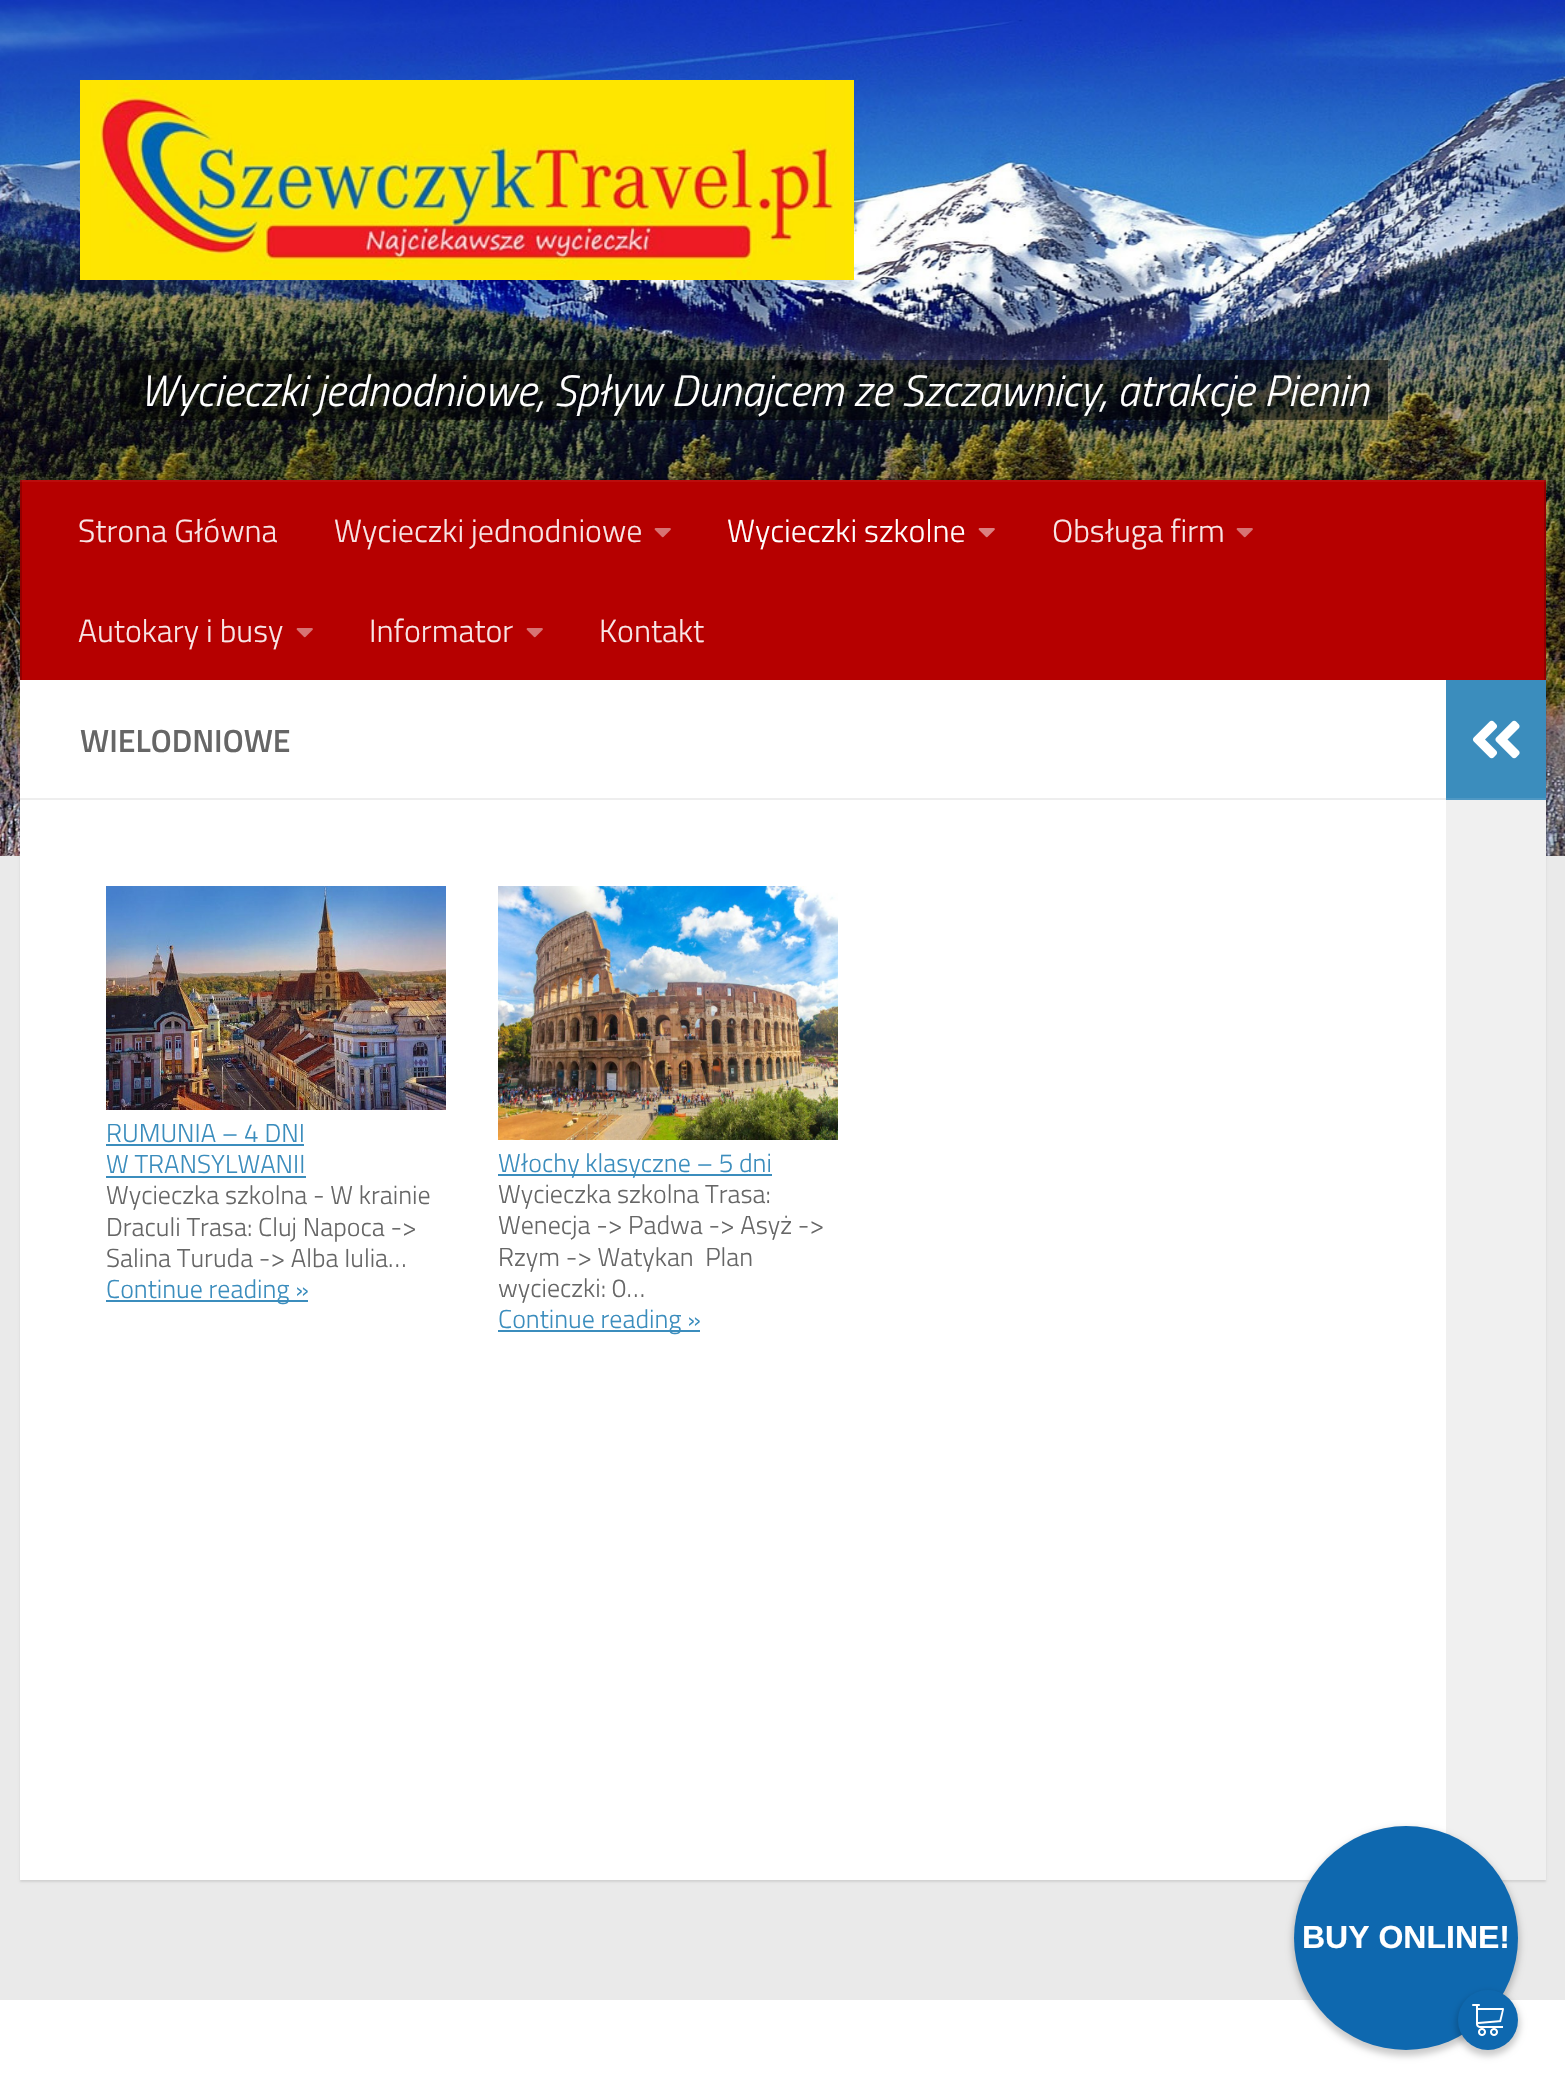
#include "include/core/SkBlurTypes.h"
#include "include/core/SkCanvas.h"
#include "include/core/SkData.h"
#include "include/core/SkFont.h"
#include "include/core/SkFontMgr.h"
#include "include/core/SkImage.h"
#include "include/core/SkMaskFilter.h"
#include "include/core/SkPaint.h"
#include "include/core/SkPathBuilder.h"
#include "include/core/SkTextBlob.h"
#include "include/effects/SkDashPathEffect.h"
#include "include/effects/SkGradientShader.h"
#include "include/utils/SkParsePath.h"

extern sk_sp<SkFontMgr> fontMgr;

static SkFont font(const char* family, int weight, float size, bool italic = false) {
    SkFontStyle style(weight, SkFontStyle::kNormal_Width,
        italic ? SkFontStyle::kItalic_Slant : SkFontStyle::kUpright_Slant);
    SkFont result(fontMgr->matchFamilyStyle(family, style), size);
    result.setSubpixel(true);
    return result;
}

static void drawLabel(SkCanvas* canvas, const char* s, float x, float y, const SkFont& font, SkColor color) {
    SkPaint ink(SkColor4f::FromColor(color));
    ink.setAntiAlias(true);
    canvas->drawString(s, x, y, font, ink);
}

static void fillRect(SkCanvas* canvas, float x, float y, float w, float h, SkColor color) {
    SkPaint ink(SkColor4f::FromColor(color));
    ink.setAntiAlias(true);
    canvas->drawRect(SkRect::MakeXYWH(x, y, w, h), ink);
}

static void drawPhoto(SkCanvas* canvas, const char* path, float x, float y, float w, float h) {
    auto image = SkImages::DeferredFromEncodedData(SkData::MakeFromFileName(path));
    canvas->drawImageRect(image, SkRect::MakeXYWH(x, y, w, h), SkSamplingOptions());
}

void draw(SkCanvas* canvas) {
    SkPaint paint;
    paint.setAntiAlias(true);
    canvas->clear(0xFFEAEAEA);
    drawPhoto(canvas, "assets/img1.png", 0, 0, 1565, 856);
    drawPhoto(canvas, "assets/img2.png", 80, 80, 774, 200);
    fillRect(canvas, 120, 360, 1268, 60, 0x80000000);
    SkFont font1 = font("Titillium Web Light", 300, 44, true);
    drawLabel(canvas, "Wycieczki jednodniowe, Spływ Dunajcem ze Szczawnicy, atrakcje Pienin", 140, 406, font1, 0xFFFFFFFF);
    fillRect(canvas, 20, 478, 1526, 2, 0x33000000);
    paint.setColor(0x1A000000);
    paint.setMaskFilter(SkMaskFilter::MakeBlur(kNormal_SkBlurStyle, 1));
    canvas->drawRect(SkRect::MakeXYWH(20, 682, 1526, 1200), paint);
    paint.setMaskFilter(nullptr);
    fillRect(canvas, 22, 480, 1522, 200, 0xFFB60000);
    fillRect(canvas, 1544, 480, 2, 200, 0xFF920000);
    fillRect(canvas, 20, 480, 2, 200, 0xFF920000);
    fillRect(canvas, 20, 480, 1526, 2, 0x0DFFFFFF);
    SkFont font2 = font("Titillium Web Light", 300, 32);
    drawLabel(canvas, "Strona Główna", 78, 542, font2, 0xFFF8E6E6);
    drawLabel(canvas, "Wycieczki jednodniowe", 334, 542, font2, 0xFFF8E6E6);
    drawPhoto(canvas, "assets/img3.png", 654, 528, 17, 10);
    drawLabel(canvas, "Wycieczki szkolne", 727, 542, font2, 0xFFFFFFFF);
    drawPhoto(canvas, "assets/img4.png", 978, 528, 17, 10);
    drawLabel(canvas, "Obsługa firm", 1052, 542, font2, 0xFFF8E6E6);
    drawPhoto(canvas, "assets/img3.png", 1236, 528, 17, 10);
    drawLabel(canvas, "Autokary i busy", 78, 642, font2, 0xFFF8E6E6);
    drawPhoto(canvas, "assets/img3.png", 296, 628, 17, 10);
    drawLabel(canvas, "Informator", 369, 642, font2, 0xFFF8E6E6);
    drawPhoto(canvas, "assets/img3.png", 526, 628, 17, 10);
    drawLabel(canvas, "Kontakt", 599, 642, font2, 0xFFF8E6E6);
    fillRect(canvas, 20, 680, 1426, 1200, 0xFFFFFFFF);
    fillRect(canvas, 20, 798, 1426, 2, 0xFFEEEEEE);
    SkFont font3 = font("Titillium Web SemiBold", 600, 32);
    drawLabel(canvas, "WIELODNIOWE", 80, 752, font3, 0xFF666666);
    drawPhoto(canvas, "assets/img5.png", 106, 886, 340, 224);
    SkFont font4 = font("Titillium Web Light", 300, 26);
    drawLabel(canvas, "RUMUNIA – 4 DNI", 106, 1142, font4, 0xFF3B8DBD);
    fillRect(canvas, 106, 1144, 198, 2, 0xFF3B8DBD);
    drawLabel(canvas, "W TRANSYLWANII", 106, 1173, font4, 0xFF3B8DBD);
    fillRect(canvas, 106, 1176, 200, 2, 0xFF3B8DBD);
    drawLabel(canvas, "Wycieczka szkolna - W krainie", 106, 1204, font4, 0xFF666666);
    drawLabel(canvas, "Draculi Trasa: Cluj Napoca ->", 106, 1236, font4, 0xFF666666);
    drawLabel(canvas, "Salina Turuda -> Alba Iulia…", 106, 1267, font4, 0xFF666666);
    fillRect(canvas, 106, 1300, 202, 2, 0xFF3B8DBD);
    drawLabel(canvas, "Continue reading »", 106, 1298, font4, 0xFF3B8DBD);
    drawPhoto(canvas, "assets/img6.png", 498, 886, 340, 254);
    fillRect(canvas, 498, 1174, 274, 2, 0xFF3B8DBD);
    drawLabel(canvas, "Włochy klasyczne – 5 dni", 498, 1172, font4, 0xFF3B8DBD);
    drawLabel(canvas, "Wycieczka szkolna Trasa:", 498, 1203, font4, 0xFF666666);
    drawLabel(canvas, "Wenecja -> Padwa -> Asyż ->", 498, 1234, font4, 0xFF666666);
    drawLabel(canvas, "Rzym -> Watykan  Plan", 498, 1266, font4, 0xFF666666);
    drawLabel(canvas, "wycieczki: 0…", 498, 1297, font4, 0xFF666666);
    fillRect(canvas, 498, 1330, 202, 2, 0xFF3B8DBD);
    drawLabel(canvas, "Continue reading »", 498, 1328, font4, 0xFF3B8DBD);
    fillRect(canvas, 1446, 680, 100, 118, 0xFF3B8DBD);
    fillRect(canvas, 1446, 798, 100, 2, 0xFF4F98C4);
    drawPhoto(canvas, "assets/img7.png", 1472, 720, 48, 39);
    fillRect(canvas, 1446, 800, 100, 1080, 0xFFF0F0F0);
    fillRect(canvas, 0, 2000, 1565, 98, 0xFFFFFFFF);
    paint.setColor(0x33000000);
    paint.setMaskFilter(SkMaskFilter::MakeBlur(kNormal_SkBlurStyle, 3));
    canvas->drawRoundRect(SkRect::MakeXYWH(1292, 1828, 228, 228), 114, 114, paint);
    paint.setMaskFilter(nullptr);
    paint.setColor(0xFF0E68AF);
    canvas->drawCircle(1406, 1938, 112, paint);
    SkFont font5 = font("Liberation Sans", 700, 32);
    drawLabel(canvas, "BUY ONLINE!", 1302, 1948, font5, 0xFFFFFFFF);
    paint.setColor(0x33000000);
    paint.setMaskFilter(SkMaskFilter::MakeBlur(kNormal_SkBlurStyle, 3));
    canvas->drawRoundRect(SkRect::MakeXYWH(1456, 1992, 64, 64), 32, 32, paint);
    paint.setMaskFilter(nullptr);
    paint.setColor(0xFF0E68AF);
    canvas->drawCircle(1488, 2020, 30, paint);
    drawPhoto(canvas, "assets/img8.png", 1472, 2004, 32, 32);
}
